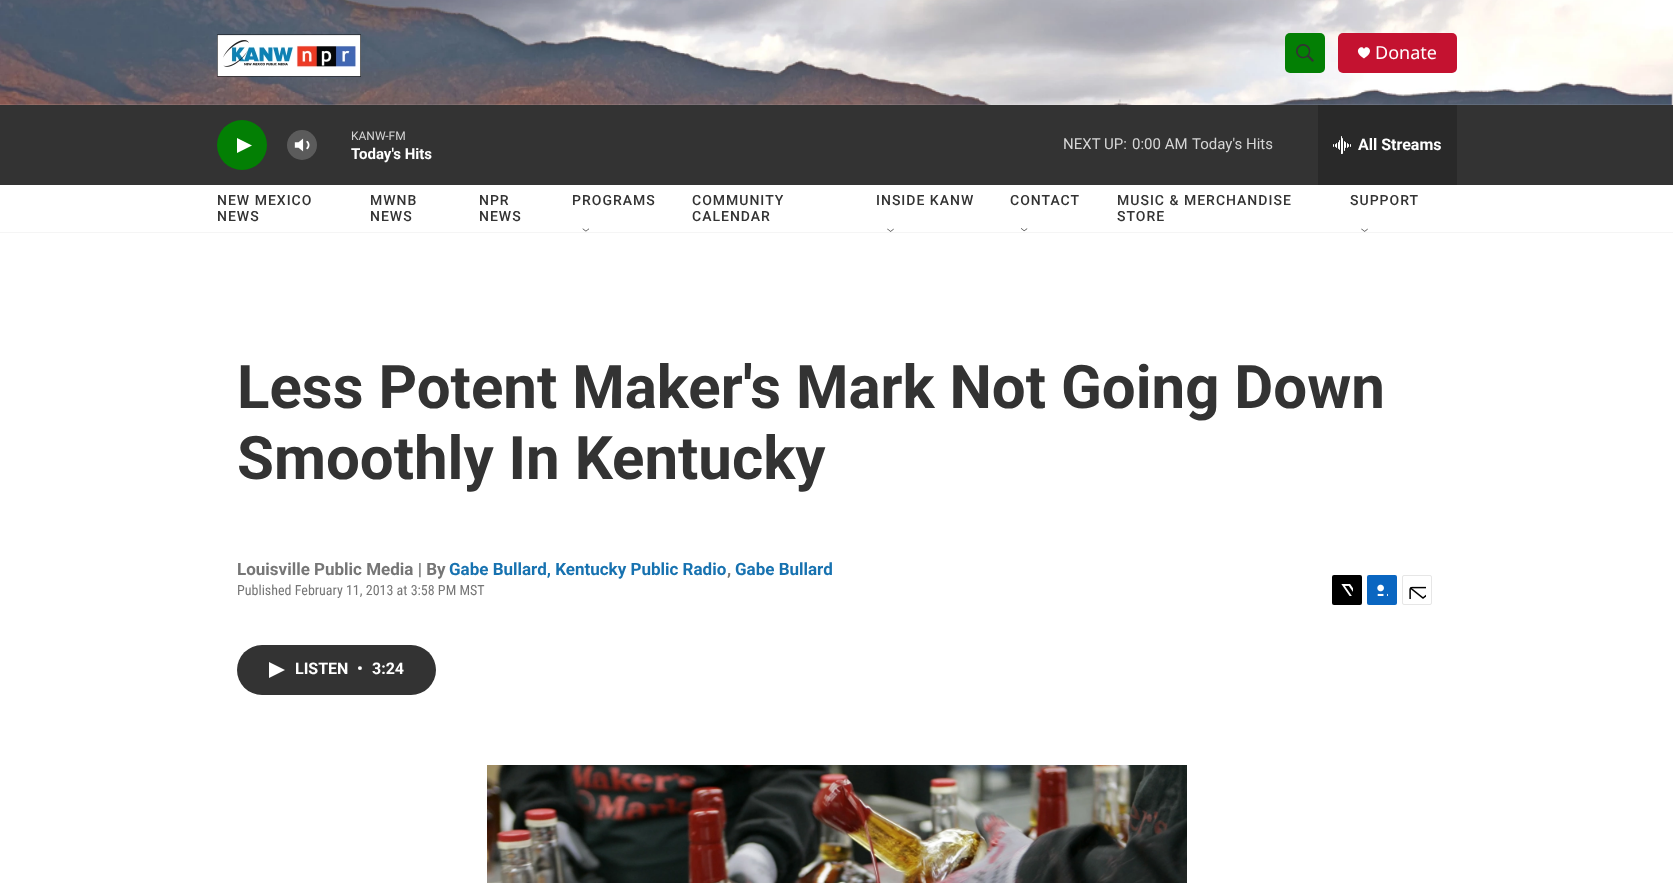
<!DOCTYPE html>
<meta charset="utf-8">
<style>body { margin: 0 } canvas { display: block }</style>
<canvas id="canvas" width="1673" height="883"></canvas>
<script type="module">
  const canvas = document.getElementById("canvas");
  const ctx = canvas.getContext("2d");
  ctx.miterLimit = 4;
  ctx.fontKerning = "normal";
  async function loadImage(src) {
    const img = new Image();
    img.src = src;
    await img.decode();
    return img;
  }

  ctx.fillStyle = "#ffffff";
  ctx.fillRect(0, 0, 1673, 883);
  ctx.fillStyle = "#f5f5f5";
  ctx.fillRect(0, 232, 1673, 1);
  ctx.drawImage(await loadImage("img1.png"), 0, 0, 1673, 105);
  ctx.drawImage(await loadImage("img2.png"), 217, 34, 144, 43);
  ctx.fillStyle = "#037f04";
  ctx.beginPath();
  ctx.roundRect(1285, 33, 40, 40, 5);
  ctx.fill();
  ctx.drawImage(await loadImage("img3.png"), 1296, 44, 18, 18);
  ctx.fillStyle = "#c41230";
  ctx.beginPath();
  ctx.roundRect(1338, 33, 119, 40, 5);
  ctx.fill();
  ctx.fillStyle = "#ffffff";
  ctx.beginPath();
  ctx.moveTo(1364, 49);
  ctx.bezierCurveTo(1362, 44, 1351.5, 51, 1364, 58.5);
  ctx.bezierCurveTo(1376.5, 51, 1366, 44, 1364, 49);
  ctx.closePath();
  ctx.fill();
  ctx.font = "18px Noto Sans";
  ctx.fillText("Donate", 1375, 59);
  ctx.fillStyle = "#333333";
  ctx.fillRect(0, 105, 1673, 80);
  ctx.fillStyle = "#037f04";
  ctx.beginPath();
  ctx.arc(242, 145, 25, 0, Math.PI * 2);
  ctx.fill();
  ctx.fillStyle = "#ffffff";
  ctx.beginPath();
  ctx.moveTo(237, 138);
  ctx.lineTo(252, 145.5);
  ctx.lineTo(237, 153);
  ctx.closePath();
  ctx.fill();
  ctx.drawImage(await loadImage("img4.png"), 294, 138, 16, 14);
  ctx.fillStyle = "rgba(255, 255, 255, 0.2)";
  ctx.beginPath();
  ctx.arc(302, 145, 15, 0, Math.PI * 2);
  ctx.fill();
  ctx.font = "12px Roboto";
  ctx.fillStyle = "#d6d6d6";
  ctx.fillText("KANW-FM", 351, 140);
  ctx.font = "bold 15px 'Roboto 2'";
  ctx.fillStyle = "#ffffff";
  ctx.fillText("Today's Hits", 351, 159);
  ctx.font = "15px Roboto";
  ctx.fillStyle = "#d6d6d6";
  ctx.fillText("NEXT UP:", 1063, 149);
  ctx.fillText("0:00 AM", 1132, 149);
  ctx.fillText("Today's Hits", 1192, 149);
  ctx.fillStyle = "#292929";
  ctx.fillRect(1318, 105, 139, 80);
  ctx.drawImage(await loadImage("img5.png"), 1333, 136, 18, 18);
  ctx.font = "bold 16px 'Roboto 2'";
  ctx.fillStyle = "#ffffff";
  ctx.fillText("All Streams", 1358, 150);
  ctx.letterSpacing = "1px";
  ctx.font = "500 14px Roboto";
  ctx.fillStyle = "#333333";
  ctx.fillText("NEW MEXICO", 217, 205);
  ctx.fillText("NEWS", 217, 221);
  ctx.fillText("MWNB", 370, 205);
  ctx.fillText("NEWS", 370, 221);
  ctx.fillText("NPR", 479, 205);
  ctx.fillText("NEWS", 479, 221);
  ctx.fillText("PROGRAMS", 572, 205);
  ctx.drawImage(await loadImage("img6.png"), 582, 228, 7, 4);
  ctx.fillText("COMMUNITY", 692, 205);
  ctx.fillText("CALENDAR", 692, 221);
  ctx.fillText("INSIDE KANW", 876, 205);
  ctx.drawImage(await loadImage("img7.png"), 887, 228, 7, 4);
  ctx.fillText("CONTACT", 1010, 205);
  ctx.drawImage(await loadImage("img8.png"), 1021, 228, 7, 4);
  ctx.fillText("MUSIC & MERCHANDISE", 1117, 205);
  ctx.fillText("STORE", 1117, 221);
  ctx.fillText("SUPPORT", 1350, 205);
  ctx.drawImage(await loadImage("img9.png"), 1361, 228, 7, 4);
  ctx.letterSpacing = "0px";
  ctx.font = "bold 60px Roboto";
  ctx.fillText("Less Potent Maker's Mark Not Going Down", 237, 408);
  ctx.fillText("Smoothly In Kentucky", 237, 479);
  ctx.font = "bold 17px Roboto";
  ctx.fillStyle = "#767676";
  ctx.fillText("Louisville Public Media | By", 237, 575);
  ctx.fillStyle = "#1772b0";
  ctx.fillText("Gabe Bullard, Kentucky Public Radio", 449, 575);
  ctx.fillStyle = "#767676";
  ctx.fillText(",", 727, 575);
  ctx.fillStyle = "#1772b0";
  ctx.fillText("Gabe Bullard", 735, 575);
  ctx.font = "14px Roboto Condensed";
  ctx.fillStyle = "#767676";
  ctx.fillText("Published February 11, 2013 at 3:58 PM MST", 237, 595);
  ctx.fillStyle = "#000000";
  ctx.beginPath();
  ctx.roundRect(1332, 575, 30, 30, 2);
  ctx.fill();
  ctx.drawImage(await loadImage("img10.png"), 1341, 584, 12, 12);
  ctx.fillStyle = "#0a66c1";
  ctx.beginPath();
  ctx.roundRect(1367, 575, 30, 30, 2);
  ctx.fill();
  ctx.drawImage(await loadImage("img11.png"), 1377, 584, 11, 12);
  ctx.beginPath();
  ctx.roundRect(1402.5, 575.5, 29, 29, 1.5);
  ctx.strokeStyle = "#e6e6e6";
  ctx.stroke();
  ctx.drawImage(await loadImage("img12.png"), 1409, 586, 17, 13);
  ctx.fillStyle = "#333333";
  ctx.beginPath();
  ctx.roundRect(237, 645, 199, 50, 25);
  ctx.fill();
  ctx.fillStyle = "#ffffff";
  ctx.beginPath();
  ctx.moveTo(269, 662);
  ctx.lineTo(285, 670);
  ctx.lineTo(269, 678);
  ctx.closePath();
  ctx.fill();
  ctx.font = "bold 16px 'Roboto 2'";
  ctx.fillText("LISTEN", 295, 674);
  ctx.fillText("•", 357, 674);
  ctx.fillText("3:24", 372, 674);
  ctx.drawImage(await loadImage("img13.png"), 487, 765, 700, 118);
</script>
